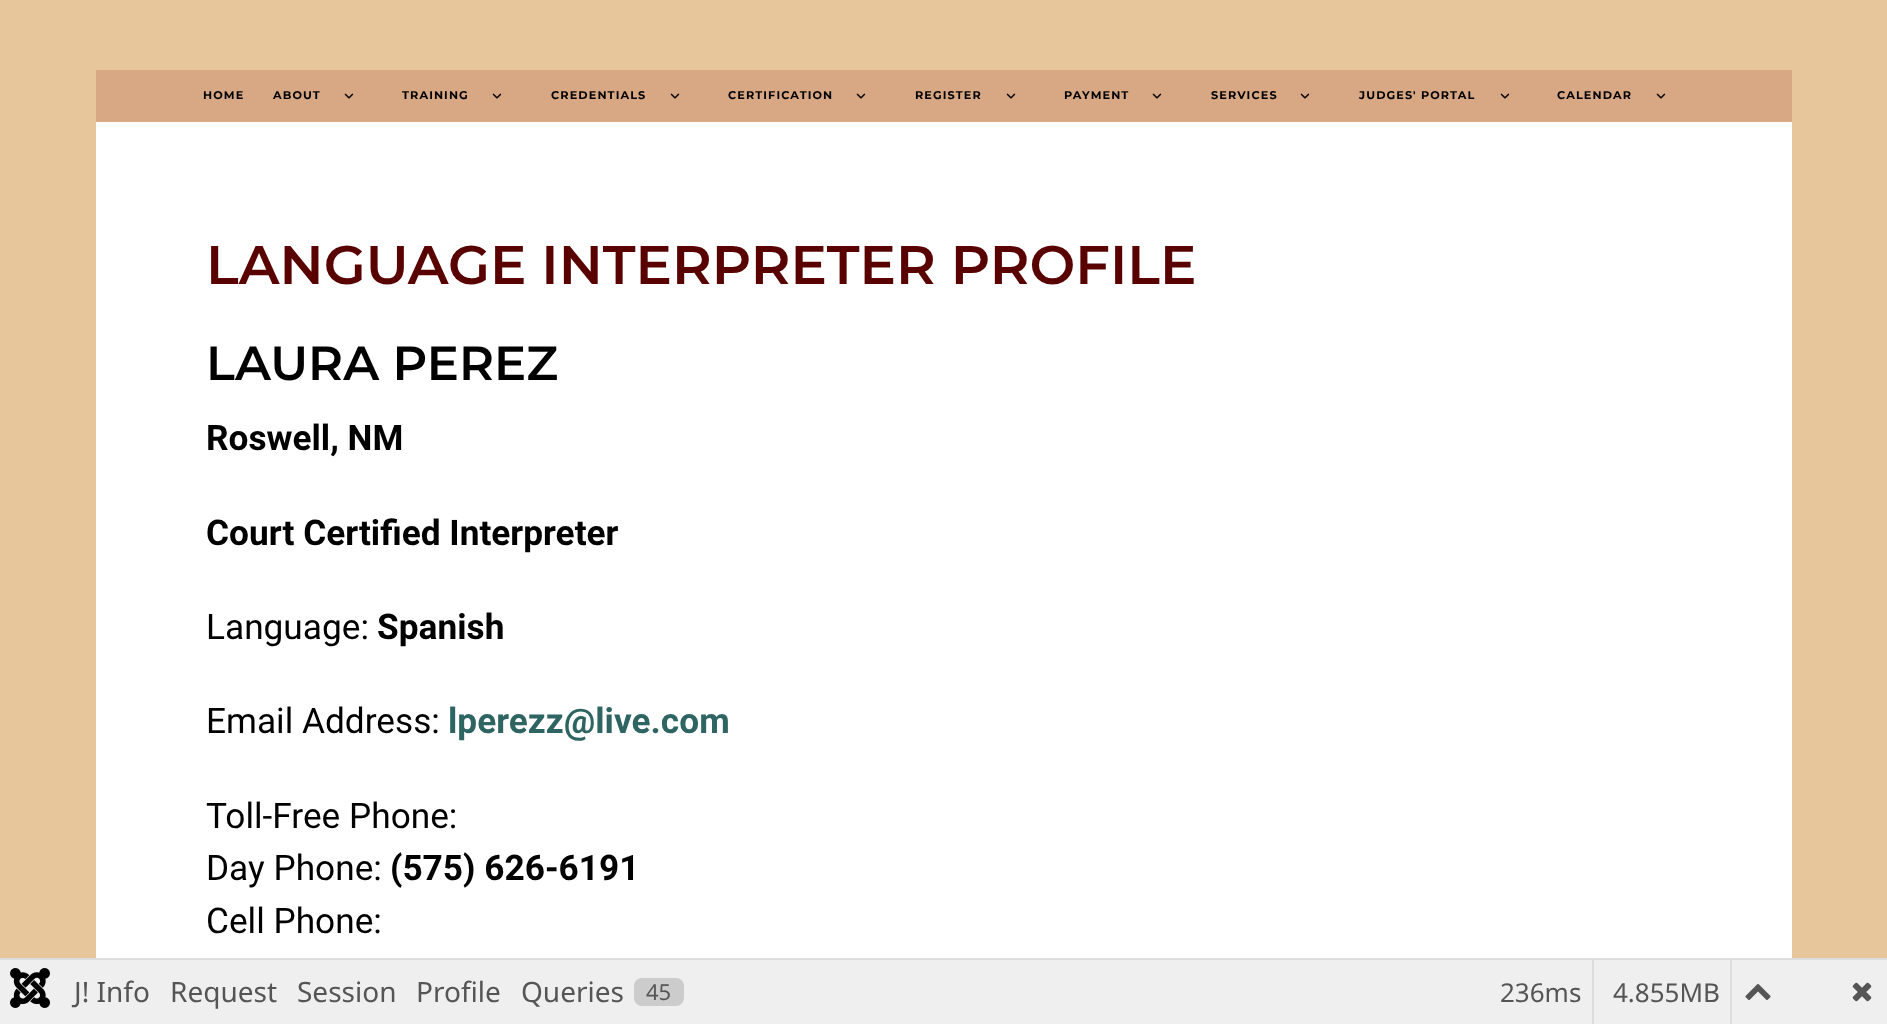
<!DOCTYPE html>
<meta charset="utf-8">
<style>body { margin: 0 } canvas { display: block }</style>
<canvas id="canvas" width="1887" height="1024"></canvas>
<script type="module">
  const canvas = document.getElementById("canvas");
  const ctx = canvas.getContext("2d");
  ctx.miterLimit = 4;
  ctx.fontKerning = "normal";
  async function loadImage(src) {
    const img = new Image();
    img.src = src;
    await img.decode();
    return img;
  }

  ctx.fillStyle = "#e6c69a";
  ctx.fillRect(0, 0, 1887, 1024);
  ctx.fillStyle = "#d8a783";
  ctx.fillRect(96, 70, 1696, 52);
  ctx.letterSpacing = "1.1px";
  ctx.font = "bold 11.25px Montserrat";
  ctx.fillStyle = "#000000";
  ctx.fillText("HOME", 203, 99);
  ctx.fillText("ABOUT", 273, 99);
  ctx.drawImage(await loadImage("img1.png"), 344, 93, 10, 6);
  ctx.fillText("TRAINING", 402, 99);
  ctx.drawImage(await loadImage("img1.png"), 492, 93, 10, 6);
  ctx.fillText("CREDENTIALS", 551, 99);
  ctx.drawImage(await loadImage("img1.png"), 670, 93, 10, 6);
  ctx.fillText("CERTIFICATION", 728, 99);
  ctx.drawImage(await loadImage("img1.png"), 856, 93, 10, 6);
  ctx.fillText("REGISTER", 915, 99);
  ctx.drawImage(await loadImage("img1.png"), 1006, 93, 10, 6);
  ctx.fillText("PAYMENT", 1064, 99);
  ctx.drawImage(await loadImage("img1.png"), 1152, 93, 10, 6);
  ctx.fillText("SERVICES", 1211, 99);
  ctx.drawImage(await loadImage("img1.png"), 1300, 93, 10, 6);
  ctx.fillText("JUDGES' PORTAL", 1359, 99);
  ctx.drawImage(await loadImage("img1.png"), 1500, 93, 10, 6);
  ctx.fillText("CALENDAR", 1557, 99);
  ctx.drawImage(await loadImage("img1.png"), 1656, 93, 10, 6);
  ctx.fillStyle = "#ffffff";
  ctx.fillRect(96, 122, 1696, 836);
  ctx.letterSpacing = "0px";
  ctx.font = "600 54.4px Montserrat";
  ctx.fillStyle = "#590000";
  ctx.fillText("LANGUAGE INTERPRETER PROFILE", 206, 284);
  ctx.font = "600 48px Montserrat";
  ctx.fillStyle = "#000000";
  ctx.fillText("LAURA PEREZ", 206, 380);
  ctx.font = "bold 35.25px Roboto";
  ctx.fillText("Roswell, NM", 206, 450);
  ctx.fillText("Court Certified Interpreter", 206, 545);
  ctx.font = "35.25px Roboto";
  ctx.fillText("Language:", 206, 639);
  ctx.font = "bold 35.25px Roboto";
  ctx.fillText("Spanish", 377, 639);
  ctx.font = "35.25px Roboto";
  ctx.fillText("Email Address:", 206, 733);
  ctx.font = "bold 35.25px Roboto";
  ctx.fillStyle = "#2e6562";
  ctx.fillText("lperezz@live.com", 448, 733);
  ctx.font = "35.25px Roboto";
  ctx.fillStyle = "#000000";
  ctx.fillText("Toll-Free Phone:", 206, 828);
  ctx.fillText("Day Phone:", 206, 880);
  ctx.font = "bold 35.25px Roboto";
  ctx.fillText("(575) 626-6191", 390, 880);
  ctx.font = "35.25px Roboto";
  ctx.fillText("Cell Phone:", 206, 933);
  ctx.fillStyle = "#dddddd";
  ctx.fillRect(0, 958, 1887, 2);
  ctx.fillStyle = "#efefef";
  ctx.fillRect(0, 960, 1887, 64);
  ctx.drawImage(await loadImage("img2.png"), 10, 968, 40, 40);
  ctx.font = "28px Noto Sans";
  ctx.fillStyle = "#555555";
  ctx.fillText("J! Info", 74, 1002);
  ctx.fillText("Request", 170, 1002);
  ctx.fillText("Session", 297, 1002);
  ctx.fillText("Profile", 416, 1002);
  ctx.fillText("Queries", 521, 1002);
  ctx.fillStyle = "#cccccc";
  ctx.beginPath();
  ctx.roundRect(634, 978, 50, 28, 8);
  ctx.fill();
  ctx.font = "22px Noto Sans";
  ctx.fillStyle = "#555555";
  ctx.fillText("45", 646, 1000);
  ctx.fillStyle = "#dddddd";
  ctx.fillRect(1592, 960, 2, 64);
  ctx.font = "26px Noto Sans";
  ctx.fillStyle = "#555555";
  ctx.fillText("236ms", 1500, 1002);
  ctx.fillStyle = "#dddddd";
  ctx.fillRect(1730, 960, 2, 64);
  ctx.fillStyle = "#555555";
  ctx.fillText("4.855MB", 1613, 1002);
  ctx.drawImage(await loadImage("img3.png"), 1745, 984, 26, 16);
  ctx.drawImage(await loadImage("img4.png"), 1852, 982, 20, 20);
</script>
